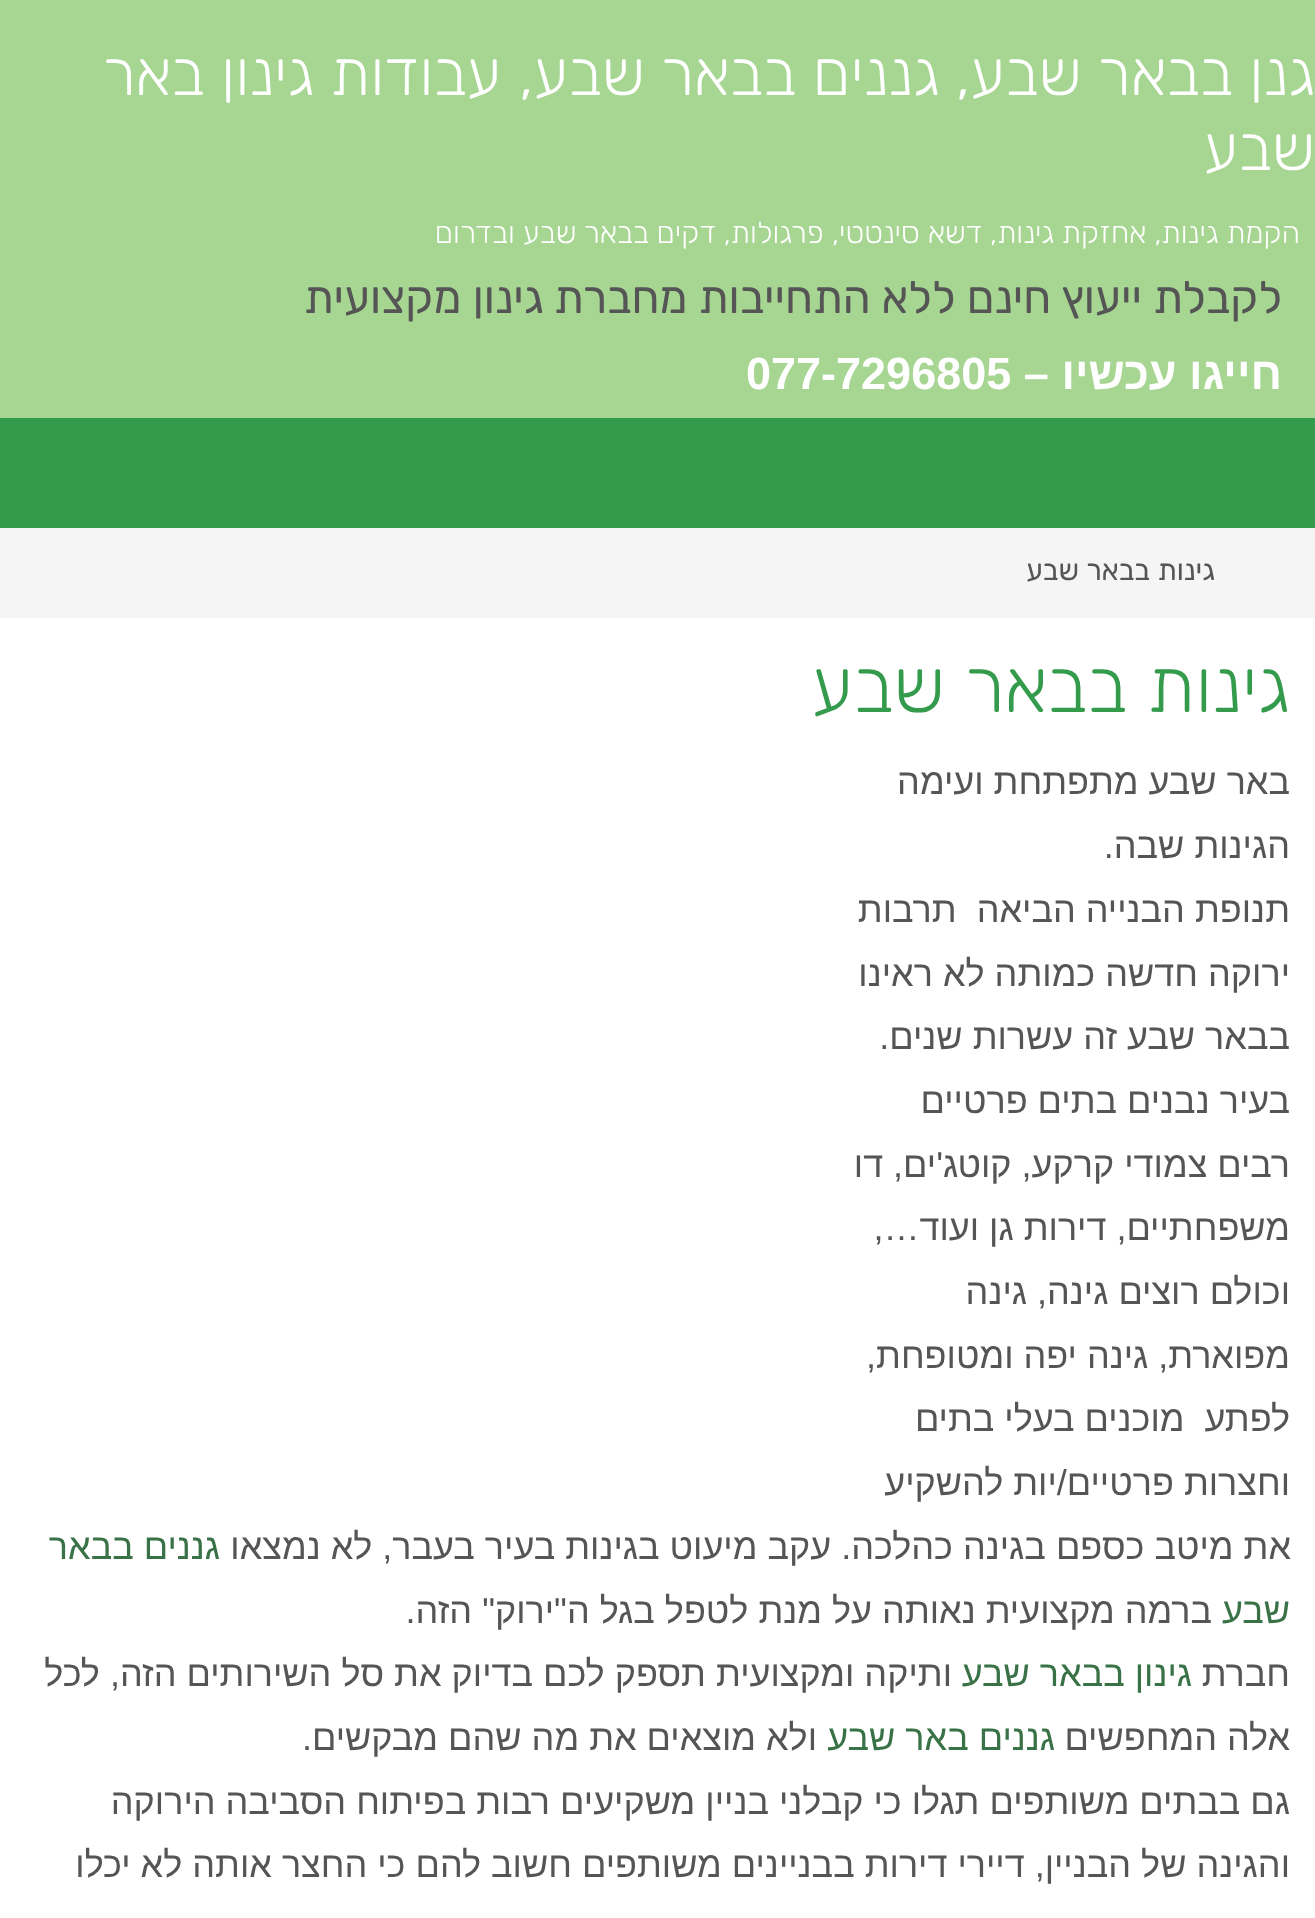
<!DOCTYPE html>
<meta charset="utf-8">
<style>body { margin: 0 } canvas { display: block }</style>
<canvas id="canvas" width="1315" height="1918"></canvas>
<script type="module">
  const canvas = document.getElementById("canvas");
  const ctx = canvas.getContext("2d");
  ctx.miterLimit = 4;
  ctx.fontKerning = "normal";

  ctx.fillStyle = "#ffffff";
  ctx.fillRect(0, 0, 1315, 1918);
  ctx.fillStyle = "#a7d693";
  ctx.fillRect(0, 0, 1315, 418);
  ctx.wordSpacing = "1.25px";
  ctx.direction = "rtl";
  ctx.font = "300 62.5px Rubik";
  ctx.fillStyle = "#ffffff";
  ctx.fillText("גנן בבאר שבע, גננים בבאר שבע, עבודות גינון באר", 1315, 95);
  ctx.wordSpacing = "0px";
  ctx.fillText("שבע", 1315, 170);
  ctx.wordSpacing = "0.5px";
  ctx.font = "300 30px Rubik";
  ctx.fillText("הקמת גינות, אחזקת גינות, דשא סינטטי, פרגולות, דקים בבאר שבע ובדרום", 1300, 243);
  ctx.wordSpacing = "0.25px";
  ctx.font = "45px Rubik";
  ctx.fillStyle = "#555555";
  ctx.fillText("לקבלת ייעוץ חינם ללא התחייבות מחברת גינון מקצועית", 1282, 313);
  ctx.wordSpacing = "0px";
  ctx.font = "bold 45px Liberation Sans";
  ctx.fillStyle = "#ffffff";
  ctx.fillText("חייגו עכשיו –", 1282, 389);
  ctx.direction = "ltr";
  ctx.fillText("077-7296805", 746, 389);
  ctx.fillStyle = "#359b4c";
  ctx.fillRect(0, 418, 1315, 110);
  ctx.fillStyle = "#f5f5f5";
  ctx.fillRect(0, 528, 1315, 90);
  ctx.wordSpacing = "1px";
  ctx.direction = "rtl";
  ctx.font = "28.75px Rubik";
  ctx.fillStyle = "#555555";
  ctx.fillText("גינות בבאר שבע", 1215, 580);
  ctx.wordSpacing = "2px";
  ctx.font = "300 75px Rubik";
  ctx.fillStyle = "#359b4c";
  ctx.fillText("גינות בבאר שבע", 1290, 712);
  ctx.wordSpacing = "0px";
  ctx.font = "36px Liberation Sans";
  ctx.fillStyle = "#555555";
  ctx.fillText("באר שבע מתפתחת ועימה", 1290, 794);
  ctx.fillText("הגינות שבה.", 1290, 858);
  ctx.fillText("תנופת הבנייה הביאה  תרבות", 1290, 922);
  ctx.fillText("ירוקה חדשה כמותה לא ראינו", 1290, 986);
  ctx.fillText("בבאר שבע זה עשרות שנים.", 1290, 1049);
  ctx.fillText("בעיר נבנים בתים פרטיים", 1290, 1113);
  ctx.fillText("רבים צמודי קרקע, קוטג'ים, דו", 1290, 1177);
  ctx.fillText("משפחתיים, דירות גן ועוד…,", 1290, 1240);
  ctx.fillText("וכולם רוצים גינה, גינה", 1290, 1304);
  ctx.fillText("מפוארת, גינה יפה ומטופחת,", 1290, 1368);
  ctx.fillText("לפתע  מוכנים בעלי בתים", 1290, 1431);
  ctx.fillText("וחצרות פרטיים/יות להשקיע", 1290, 1495);
  ctx.fillText("את מיטב כספם בגינה כהלכה. עקב מיעוט בגינות בעיר בעבר, לא נמצאו", 1291, 1559);
  ctx.fillStyle = "#3a7247";
  ctx.fillText("גננים בבאר", 220, 1559);
  ctx.fillText("שבע", 1290, 1623);
  ctx.fillStyle = "#555555";
  ctx.fillText("ברמה מקצועית נאותה על מנת לטפל בגל ה\"ירוק\" הזה.", 1212, 1623);
  ctx.fillText("חברת", 1290, 1686);
  ctx.fillStyle = "#3a7247";
  ctx.fillText("גינון בבאר שבע", 1192, 1686);
  ctx.fillStyle = "#555555";
  ctx.fillText("ותיקה ומקצועית תספק לכם בדיוק את סל השירותים הזה, לכל", 952, 1686);
  ctx.fillText("אלה המחפשים", 1290, 1750);
  ctx.fillStyle = "#3a7247";
  ctx.fillText("גננים באר שבע", 1055, 1750);
  ctx.fillStyle = "#555555";
  ctx.fillText("ולא מוצאים את מה שהם מבקשים.", 817, 1750);
  ctx.fillText("גם בבתים משותפים תגלו כי קבלני בניין משקיעים רבות בפיתוח הסביבה הירוקה", 1290, 1814);
  ctx.fillText("והגינה של הבניין, דיירי דירות בבניינים משותפים חשוב להם כי החצר אותה לא יכלו", 1290, 1877);
</script>
